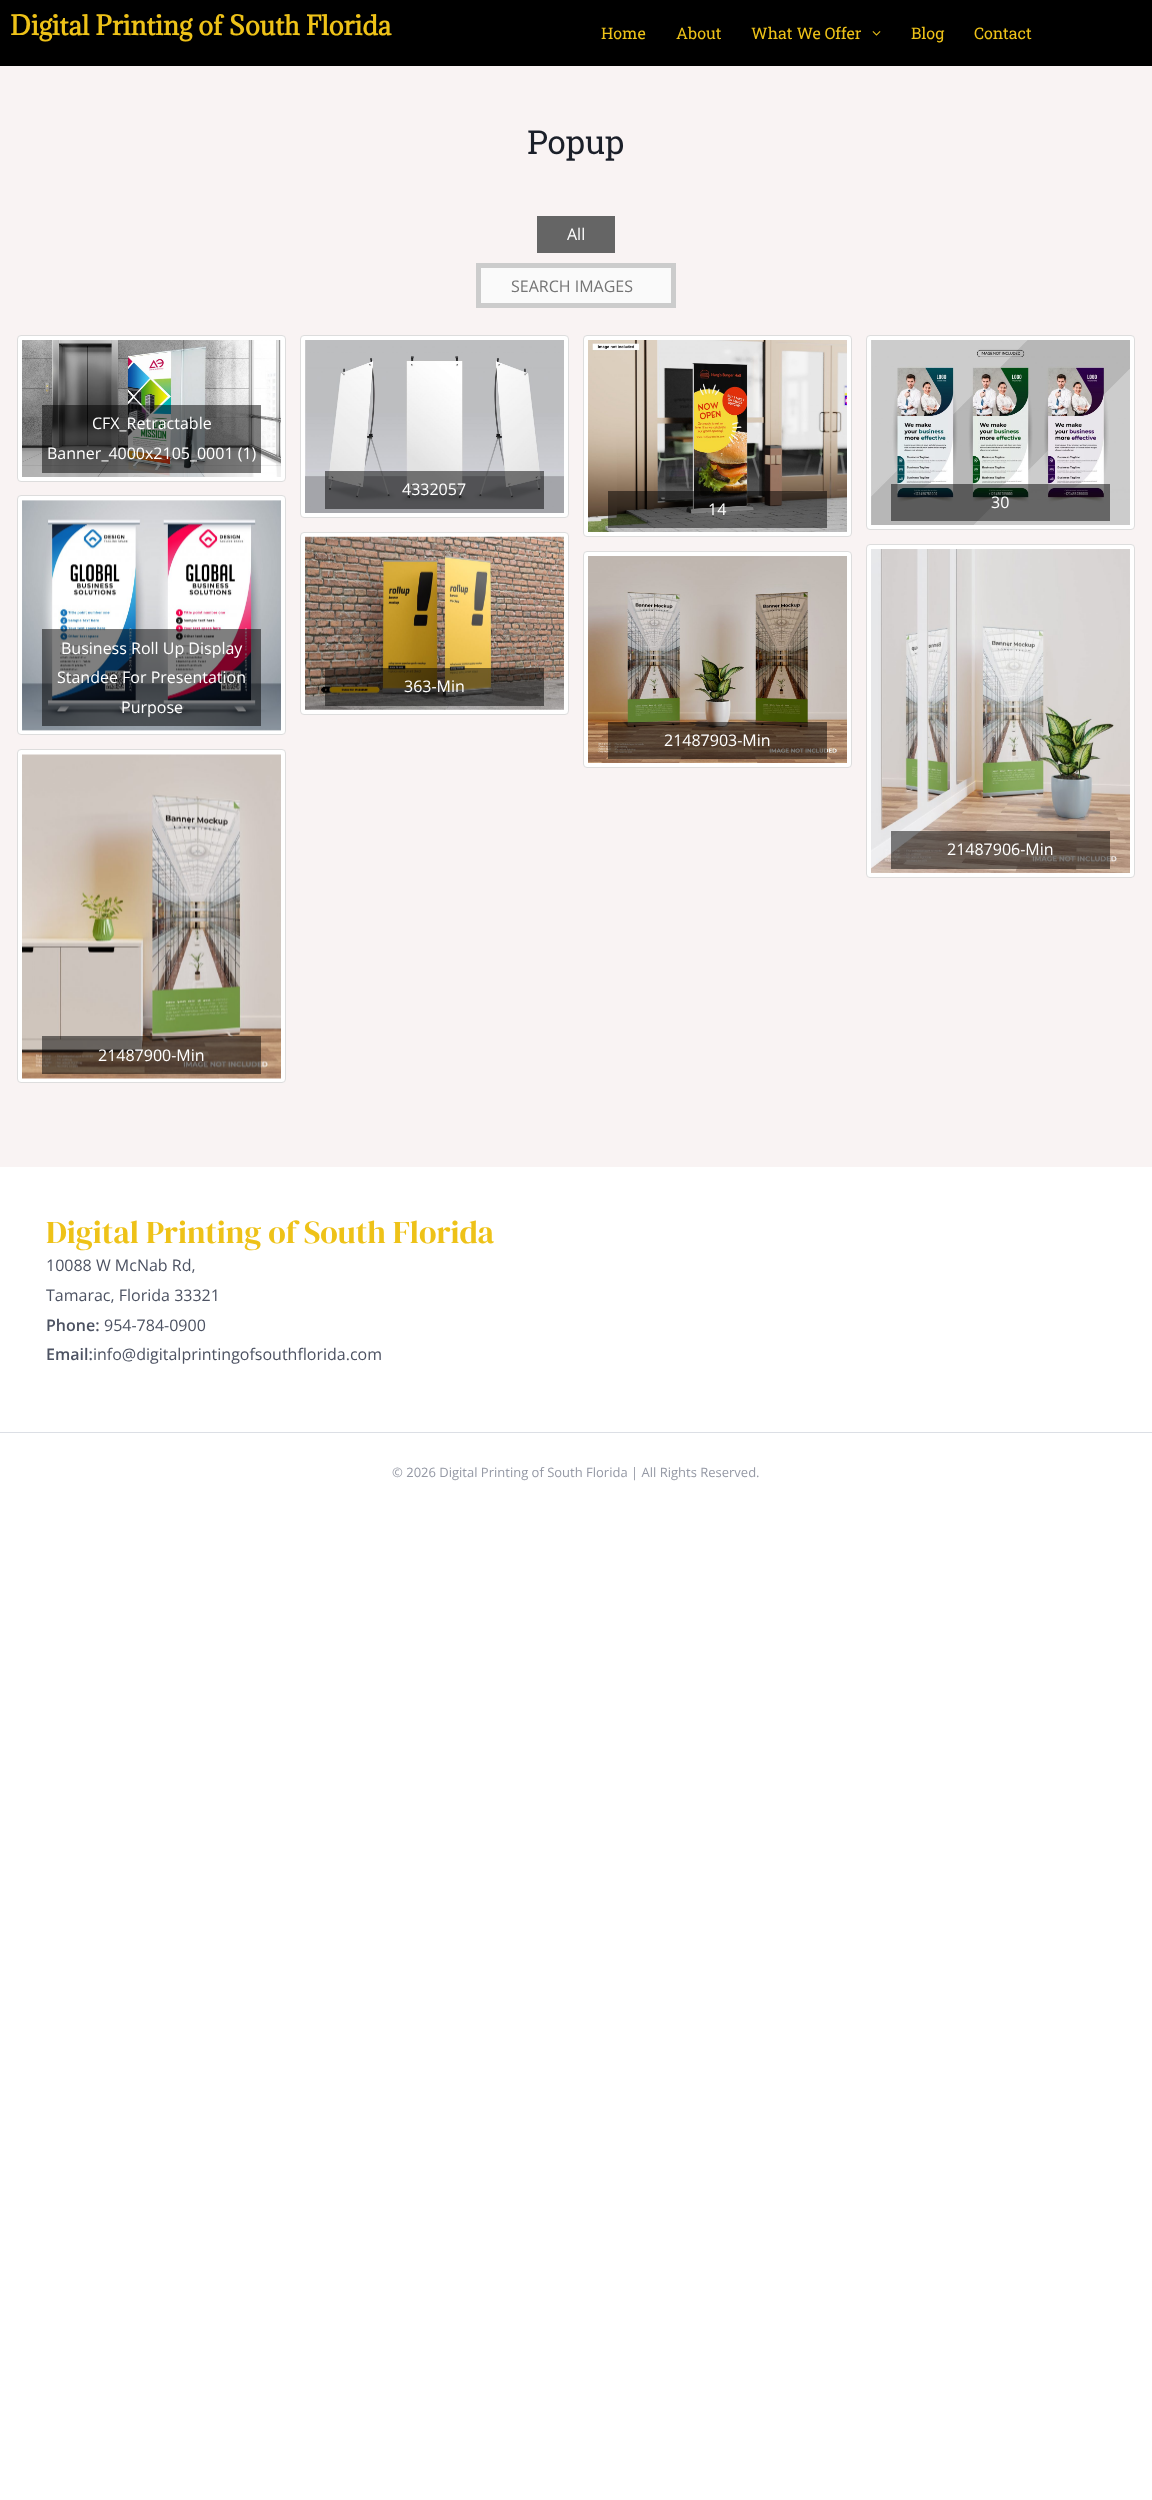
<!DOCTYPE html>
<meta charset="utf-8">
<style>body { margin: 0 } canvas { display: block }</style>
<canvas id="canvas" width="1152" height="2500"></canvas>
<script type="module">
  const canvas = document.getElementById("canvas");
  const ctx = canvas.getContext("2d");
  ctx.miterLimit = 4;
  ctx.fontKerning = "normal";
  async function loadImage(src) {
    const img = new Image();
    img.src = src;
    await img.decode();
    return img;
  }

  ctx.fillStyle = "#ffffff";
  ctx.fillRect(0, 0, 1152, 2500);
  ctx.fillStyle = "#000000";
  ctx.fillRect(0, 0, 1152, 66);
  ctx.font = "bold 25px Adamina";
  ctx.fillStyle = "#eec218";
  ctx.fillText("Digital Printing of South Florida", 10, 35);
  ctx.font = "16px Roboto Slab";
  ctx.fillText("Home", 601, 39);
  ctx.fillText("About", 676, 39);
  ctx.fillText("What We Offer", 751, 39);
  ctx.drawImage(await loadImage("img1.png"), 872, 31, 9, 5);
  ctx.fillText("Blog", 911, 39);
  ctx.fillText("Contact", 974, 39);
  ctx.fillStyle = "#f9f3f3";
  ctx.fillRect(0, 66, 1152, 1101);
  ctx.font = "33px Roboto Slab";
  ctx.fillStyle = "#1b1f29";
  ctx.fillText("Popup", 527, 154);
  ctx.fillStyle = "#656565";
  ctx.fillRect(537, 216, 78, 37);
  ctx.font = "16px Open Sans";
  ctx.fillStyle = "#ffffff";
  ctx.fillText("All", 567, 240);
  ctx.fillStyle = "#fafafa";
  ctx.fillRect(481, 268, 190, 35);
  ctx.beginPath();
  ctx.moveTo(478.5, 265.5);
  ctx.lineTo(673.5, 265.5);
  ctx.lineTo(673.5, 305.5);
  ctx.lineTo(478.5, 305.5);
  ctx.closePath();
  ctx.strokeStyle = "#cccccc";
  ctx.lineWidth = 5;
  ctx.stroke();
  ctx.fillStyle = "#757575";
  ctx.fillText("SEARCH IMAGES", 511, 292);
  ctx.fillStyle = "#ffffff";
  ctx.beginPath();
  ctx.roundRect(17.5, 335.5, 268, 146, 3.5);
  ctx.fill();
  ctx.strokeStyle = "#dddddd";
  ctx.lineWidth = 1;
  ctx.stroke();
  ctx.drawImage(await loadImage("img2.png"), 22, 340, 259, 137);
  ctx.fillStyle = "rgba(0, 0, 0, 0.5)";
  ctx.fillRect(42, 405, 219, 68);
  ctx.fillStyle = "#ffffff";
  ctx.fillText("CFX_Retractable", 92, 429);
  ctx.fillText("Banner_4000x2105_0001 (1)", 47, 459);
  ctx.beginPath();
  ctx.roundRect(300.5, 335.5, 268, 182, 3.5);
  ctx.fill();
  ctx.stroke();
  ctx.drawImage(await loadImage("img3.png"), 305, 340, 259, 173);
  ctx.fillStyle = "rgba(0, 0, 0, 0.5)";
  ctx.fillRect(325, 471, 219, 38);
  ctx.fillStyle = "#ffffff";
  ctx.fillText("4332057", 402, 495);
  ctx.beginPath();
  ctx.roundRect(583.5, 335.5, 268, 201, 3.5);
  ctx.fill();
  ctx.stroke();
  ctx.drawImage(await loadImage("img4.png"), 588, 340, 259, 192);
  ctx.fillStyle = "rgba(0, 0, 0, 0.5)";
  ctx.fillRect(608, 491, 219, 37);
  ctx.fillStyle = "#ffffff";
  ctx.fillText("14", 708, 515);
  ctx.beginPath();
  ctx.roundRect(866.5, 335.5, 268, 194, 3.5);
  ctx.fill();
  ctx.stroke();
  ctx.drawImage(await loadImage("img5.png"), 871, 340, 259, 185);
  ctx.fillStyle = "rgba(0, 0, 0, 0.5)";
  ctx.fillRect(891, 484, 219, 37);
  ctx.fillStyle = "#ffffff";
  ctx.fillText("30", 991, 508);
  ctx.beginPath();
  ctx.roundRect(17.5, 495.5, 268, 239, 3.5);
  ctx.fill();
  ctx.stroke();
  ctx.drawImage(await loadImage("img6.png"), 22, 500, 259, 231);
  ctx.fillStyle = "rgba(0, 0, 0, 0.5)";
  ctx.fillRect(42, 629, 219, 97);
  ctx.fillStyle = "#ffffff";
  ctx.fillText("Business Roll Up Display", 61, 654);
  ctx.fillText("Standee For Presentation", 57, 683);
  ctx.fillText("Purpose", 121, 713);
  ctx.beginPath();
  ctx.roundRect(300.5, 532.5, 268, 182, 3.5);
  ctx.fill();
  ctx.stroke();
  ctx.drawImage(await loadImage("img7.png"), 305, 536, 259, 174);
  ctx.fillStyle = "rgba(0, 0, 0, 0.5)";
  ctx.fillRect(325, 668, 219, 38);
  ctx.fillStyle = "#ffffff";
  ctx.fillText("363-Min", 404, 692);
  ctx.beginPath();
  ctx.roundRect(583.5, 551.5, 268, 216, 3.5);
  ctx.fill();
  ctx.stroke();
  ctx.drawImage(await loadImage("img8.png"), 588, 556, 259, 207);
  ctx.fillStyle = "rgba(0, 0, 0, 0.5)";
  ctx.fillRect(608, 722, 219, 37);
  ctx.fillStyle = "#ffffff";
  ctx.fillText("21487903-Min", 664, 746);
  ctx.beginPath();
  ctx.roundRect(866.5, 544.5, 268, 333, 3.5);
  ctx.fill();
  ctx.stroke();
  ctx.drawImage(await loadImage("img9.png"), 871, 549, 259, 324);
  ctx.fillStyle = "rgba(0, 0, 0, 0.5)";
  ctx.fillRect(891, 831, 219, 38);
  ctx.fillStyle = "#ffffff";
  ctx.fillText("21487906-Min", 947, 855);
  ctx.beginPath();
  ctx.roundRect(17.5, 749.5, 268, 333, 3.5);
  ctx.fill();
  ctx.stroke();
  ctx.drawImage(await loadImage("img10.png"), 22, 754, 259, 325);
  ctx.fillStyle = "rgba(0, 0, 0, 0.5)";
  ctx.fillRect(42, 1036, 219, 38);
  ctx.fillStyle = "#ffffff";
  ctx.fillText("21487900-Min", 98, 1061);
  ctx.font = "32px DM Serif Display";
  ctx.fillStyle = "#eec218";
  ctx.fillText("Digital Printing of South Florida", 46, 1243);
  ctx.font = "16px Open Sans";
  ctx.fillStyle = "#4c5262";
  ctx.fillText("10088 W McNab Rd,", 46, 1271);
  ctx.fillText("Tamarac, Florida 33321", 46, 1301);
  ctx.font = "600 16px Open Sans";
  ctx.fillText("Phone:", 46, 1331);
  ctx.font = "16px Open Sans";
  ctx.fillText("954-784-0900", 104, 1331);
  ctx.font = "600 16px Open Sans";
  ctx.fillText("Email:", 46, 1360);
  ctx.font = "16px Open Sans";
  ctx.fillText("info@digitalprintingofsouthflorida.com", 93, 1360);
  ctx.fillStyle = "#dcdfe5";
  ctx.fillRect(0, 1432, 1152, 1);
  ctx.font = "13px Open Sans";
  ctx.fillStyle = "#9599a5";
  ctx.fillText("© 2026 Digital Printing of South Florida | All Rights Reserved.", 392, 1477);
</script>
